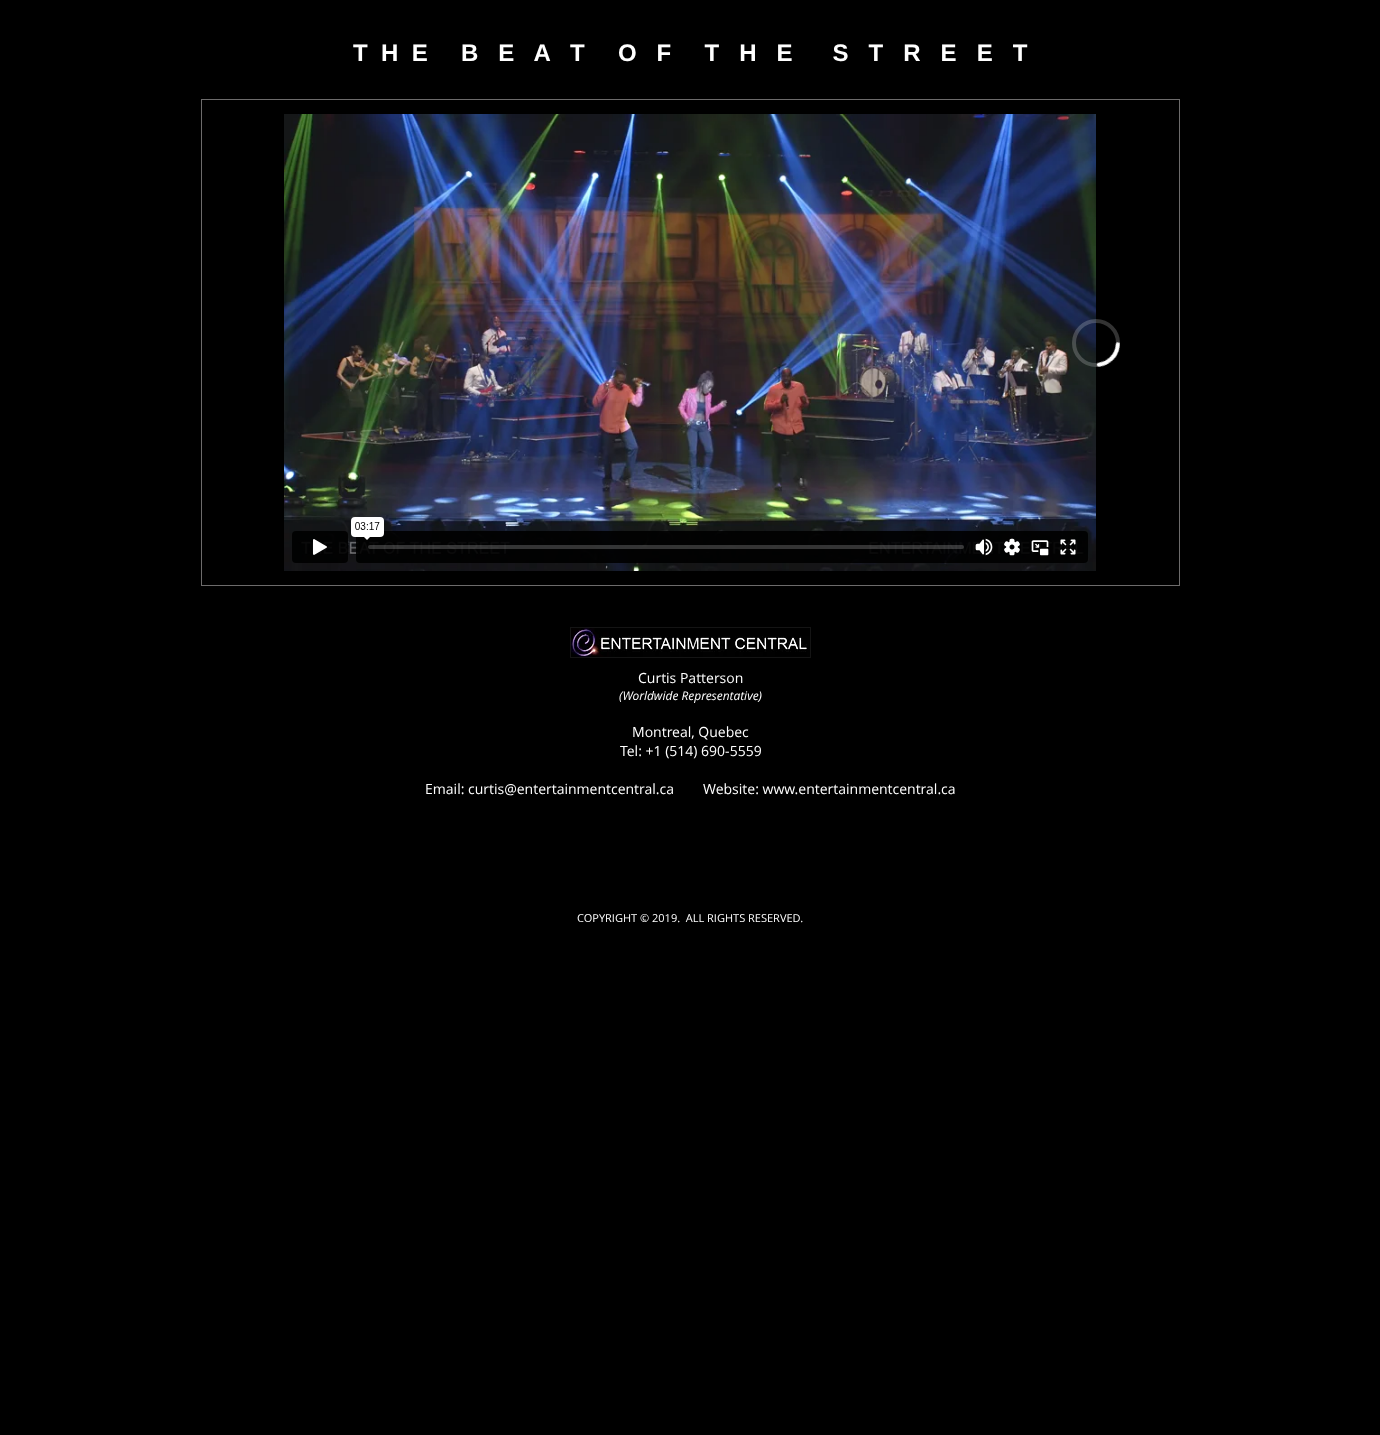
<!DOCTYPE html>
<meta charset="utf-8">
<style>body { margin: 0 } canvas { display: block }</style>
<canvas id="canvas" width="1380" height="1435"></canvas>
<script type="module">
  const canvas = document.getElementById("canvas");
  const ctx = canvas.getContext("2d");
  ctx.miterLimit = 4;
  ctx.fontKerning = "normal";
  async function loadImage(src) {
    const img = new Image();
    img.src = src;
    await img.decode();
    return img;
  }

  ctx.fillStyle = "#000000";
  ctx.fillRect(0, 0, 1380, 1435);
  ctx.font = "bold 24px Liberation Sans";
  ctx.fillStyle = "#ffffff";
  ctx.fillText("T  H  E     B   E   A   T     O   F     T   H   E      S   T   R   E   E   T", 353, 61);
  ctx.fillStyle = "#6d6b6b";
  ctx.fillRect(201, 99, 979, 487);
  ctx.fillStyle = "#000000";
  ctx.fillRect(202, 100, 977, 485);
  ctx.drawImage(await loadImage("img1.png"), 284, 114, 836, 457);
  ctx.strokeStyle = "#141414";
  ctx.strokeRect(570.5, 627.5, 240, 30);
  ctx.drawImage(await loadImage("img2.png"), 571, 628, 239, 29);
  ctx.font = "14px Open Sans";
  ctx.fillStyle = "#ffffff";
  ctx.fillText("Curtis Patterson", 638, 683);
  ctx.font = "italic 12px Open Sans";
  ctx.fillText("(Worldwide Representative)", 619, 700);
  ctx.font = "14px Open Sans";
  ctx.fillText("Montreal, Quebec", 632, 737);
  ctx.fillText("Tel: +1 (514) 690-5559", 620, 756);
  ctx.fillText("Email: curtis@entertainmentcentral.ca", 425, 794);
  ctx.fillText("Website: www.entertainmentcentral.ca", 703, 794);
  ctx.font = "11px Open Sans";
  ctx.fillText("COPYRIGHT © 2019.  ALL RIGHTS RESERVED.", 577, 922);
</script>
